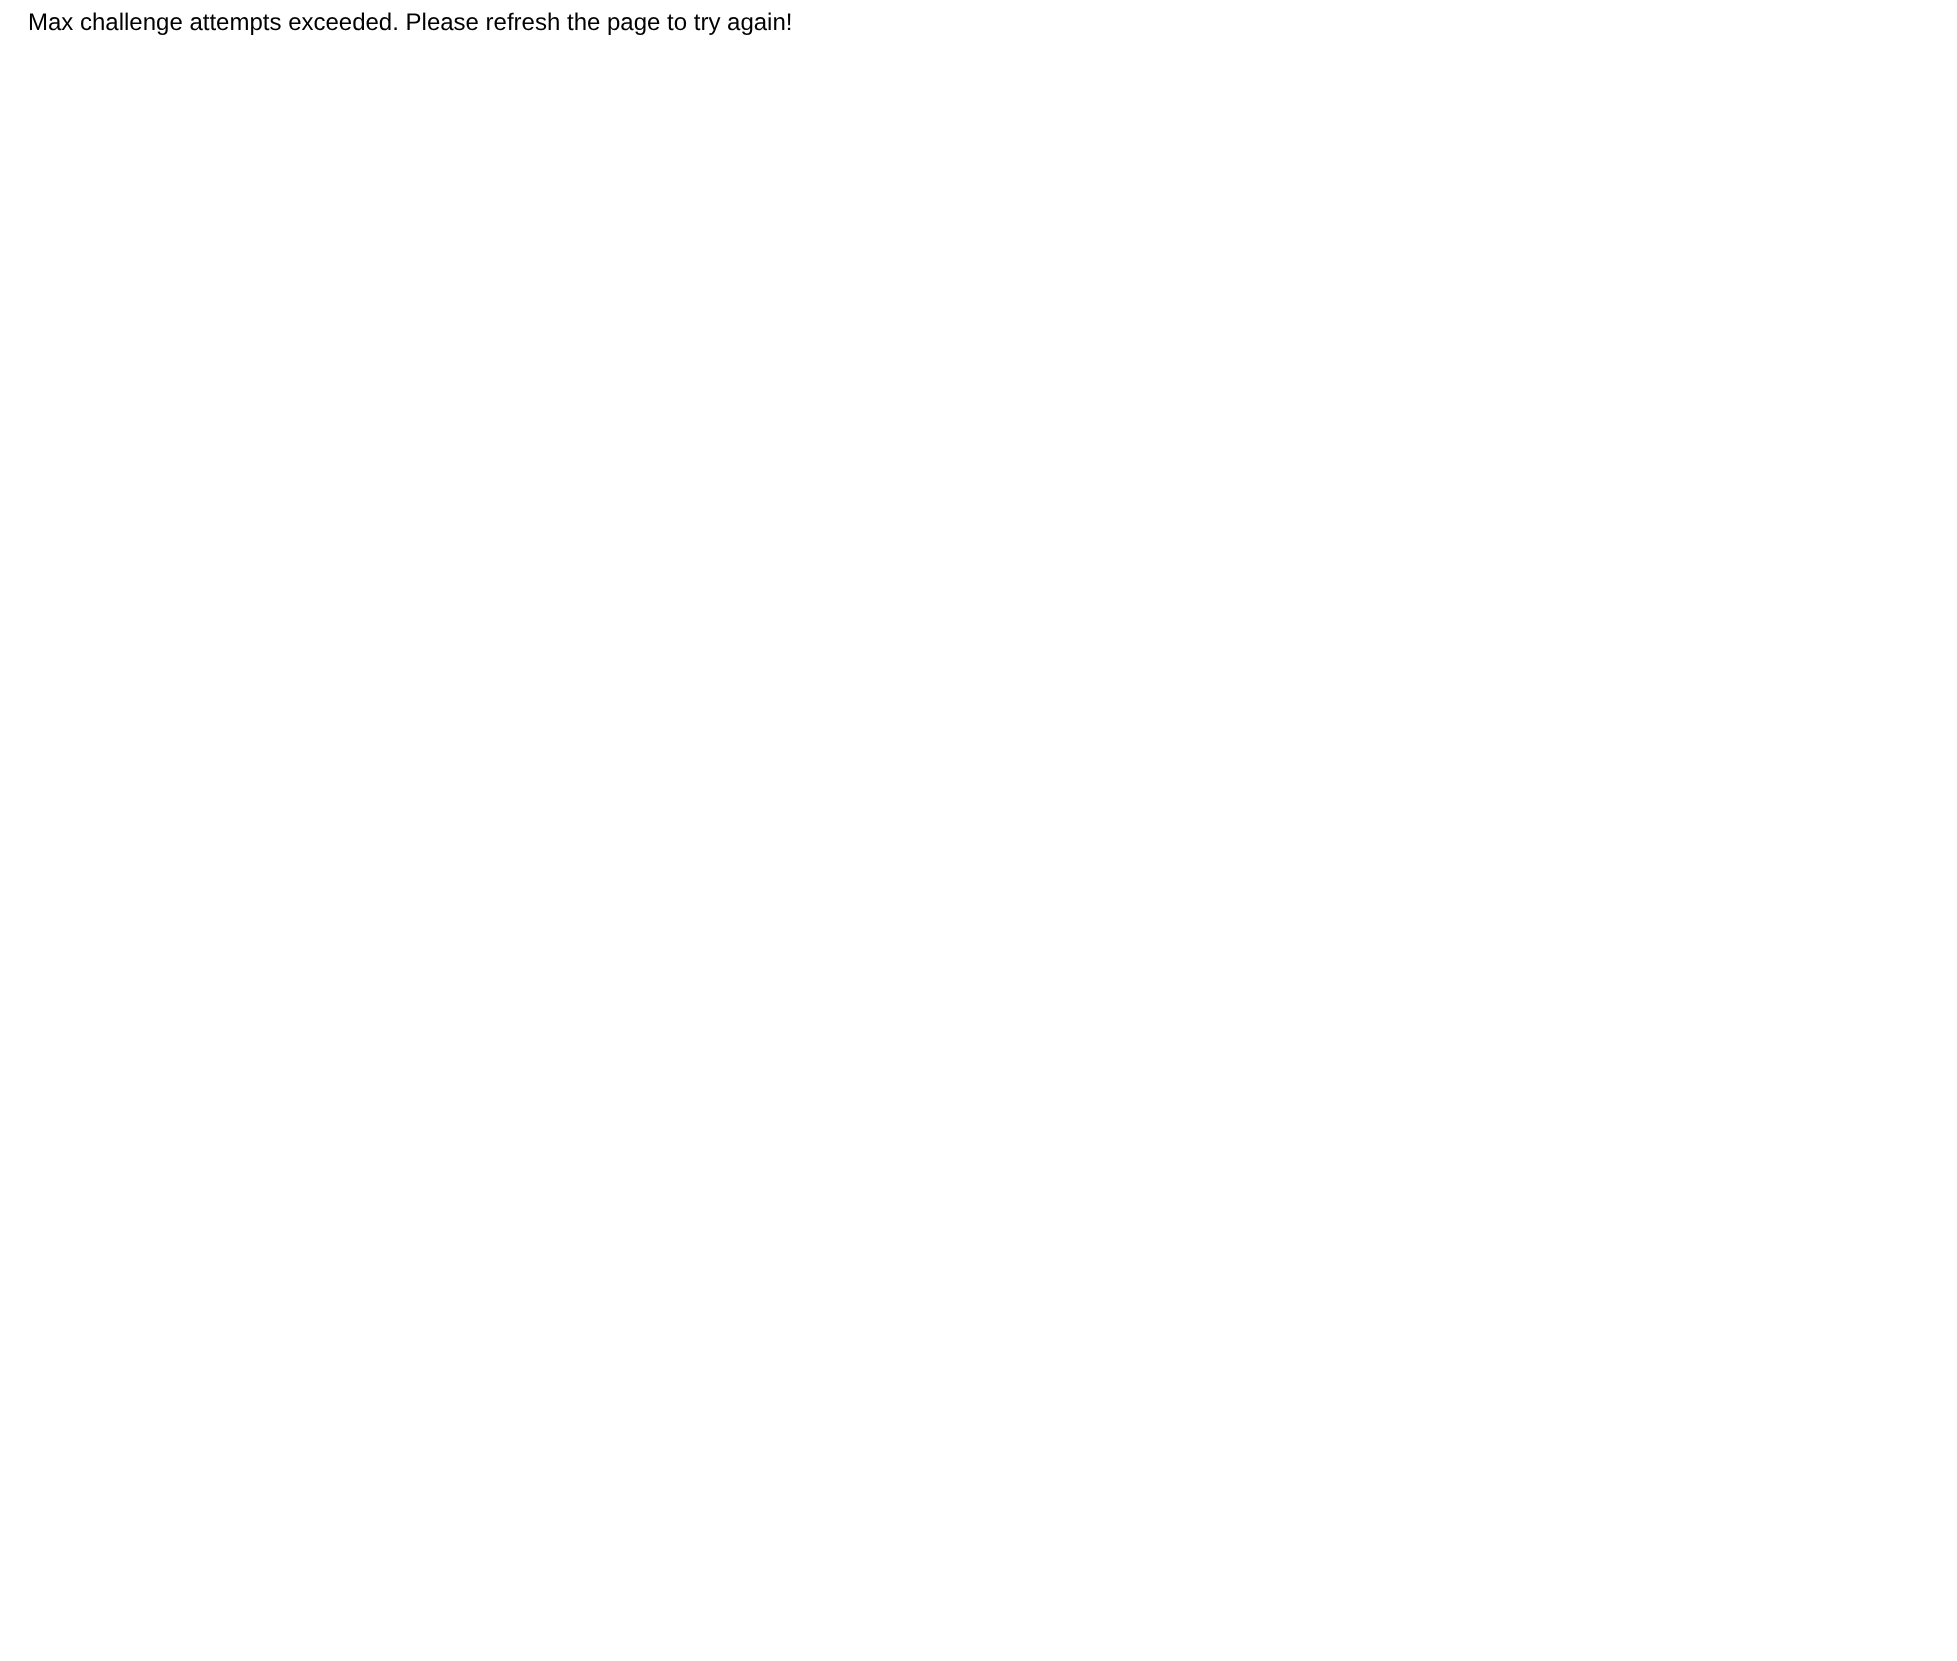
<!DOCTYPE html>
<meta charset="utf-8">
<style>body { margin: 0 } canvas { display: block }</style>
<canvas id="canvas" width="1957" height="1661"></canvas>
<script type="module">
  const canvas = document.getElementById("canvas");
  const ctx = canvas.getContext("2d");
  ctx.miterLimit = 4;
  ctx.fontKerning = "normal";

  ctx.fillStyle = "#ffffff";
  ctx.fillRect(0, 0, 1957, 1661);
  ctx.font = "24px Liberation Sans";
  ctx.fillStyle = "#000000";
  ctx.fillText("Max challenge attempts exceeded. Please refresh the page to try again!", 28, 30);
</script>
